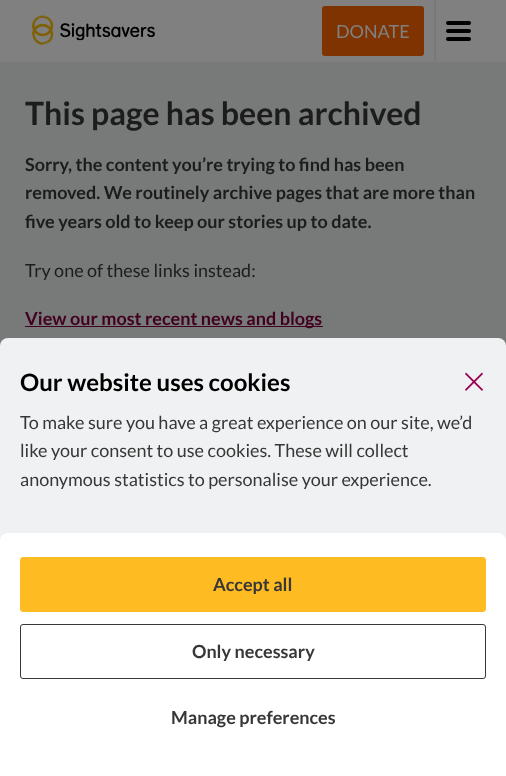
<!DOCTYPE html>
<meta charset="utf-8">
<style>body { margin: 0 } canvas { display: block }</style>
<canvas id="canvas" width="506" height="776"></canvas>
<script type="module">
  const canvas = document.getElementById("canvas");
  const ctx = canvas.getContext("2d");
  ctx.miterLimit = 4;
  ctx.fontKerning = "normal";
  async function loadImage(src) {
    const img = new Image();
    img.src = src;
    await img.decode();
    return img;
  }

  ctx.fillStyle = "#808080";
  ctx.fillRect(0, 0, 506, 776);
  ctx.drawImage(await loadImage("img1.png"), 32, 15, 123, 30);
  ctx.fillStyle = "#7e3300";
  ctx.beginPath();
  ctx.roundRect(322, 6, 102, 50, 3);
  ctx.fill();
  ctx.font = "18px Lato";
  ctx.fillStyle = "#808080";
  ctx.fillText("DONATE", 336, 38);
  ctx.fillStyle = "#787979";
  ctx.fillRect(434, 0, 2, 62);
  ctx.fillStyle = "#000000";
  ctx.beginPath();
  ctx.roundRect(446, 29, 25, 4, 2);
  ctx.fill();
  ctx.beginPath();
  ctx.roundRect(446, 21, 25, 4, 2);
  ctx.fill();
  ctx.beginPath();
  ctx.roundRect(446, 37, 25, 4, 2);
  ctx.fill();
  ctx.fillStyle = "#787979";
  ctx.fillRect(0, 62, 506, 284);
  ctx.font = "bold 32px Lato";
  ctx.fillStyle = "#1c1c1c";
  ctx.fillText("This page has been archived", 25, 125);
  ctx.font = "bold 18px Lato";
  ctx.fillText("Sorry, the content you’re trying to find has been", 25, 171);
  ctx.fillText("removed. We routinely archive pages that are more than", 25, 199);
  ctx.fillText("five years old to keep our stories up to date.", 25, 228);
  ctx.font = "18px Lato";
  ctx.fillText("Try one of these links instead:", 25, 277);
  ctx.fillStyle = "#410020";
  ctx.fillRect(25, 326, 298, 1);
  ctx.font = "bold 18px Lato";
  ctx.fillText("View our most recent news and blogs", 25, 325);
  ctx.fillStyle = "#f0f1f2";
  ctx.beginPath();
  ctx.roundRect(0, 338, 506, 208, [8, 8, 0, 0]);
  ctx.fill();
  ctx.font = "bold 24px Lato";
  ctx.fillStyle = "#000000";
  ctx.fillText("Our website uses cookies", 20, 391);
  ctx.fillStyle = "#960051";
  ctx.beginPath();
  ctx.moveTo(466, 372.5);
  ctx.lineTo(483, 389.5);
  ctx.lineTo(482, 391);
  ctx.lineTo(465, 374);
  ctx.closePath();
  ctx.fill();
  ctx.beginPath();
  ctx.moveTo(483, 374);
  ctx.lineTo(466, 391);
  ctx.lineTo(465, 389.5);
  ctx.lineTo(482, 372.5);
  ctx.closePath();
  ctx.fill();
  ctx.font = "18px Lato";
  ctx.fillStyle = "#373737";
  ctx.fillText("To make sure you have a great experience on our site, we’d", 20, 429);
  ctx.fillText("like your consent to use cookies. These will collect", 20, 457);
  ctx.fillText("anonymous statistics to personalise your experience.", 20, 486);
  ctx.fillStyle = "#ffffff";
  ctx.beginPath();
  ctx.roundRect(0, 533, 506, 243, [8, 8, 0, 0]);
  ctx.fill();
  ctx.fillStyle = "#ffbb22";
  ctx.beginPath();
  ctx.roundRect(20.5, 557.5, 465, 54, 2.5);
  ctx.fill();
  ctx.strokeStyle = "#ffbb22";
  ctx.stroke();
  ctx.font = "bold 18px Lato";
  ctx.fillStyle = "#373737";
  ctx.fillText("Accept all", 213, 591);
  ctx.beginPath();
  ctx.roundRect(20.5, 624.5, 465, 54, 2.5);
  ctx.strokeStyle = "#373737";
  ctx.stroke();
  ctx.fillText("Only necessary", 192, 658);
  ctx.fillText("Manage preferences", 171, 724);
</script>
